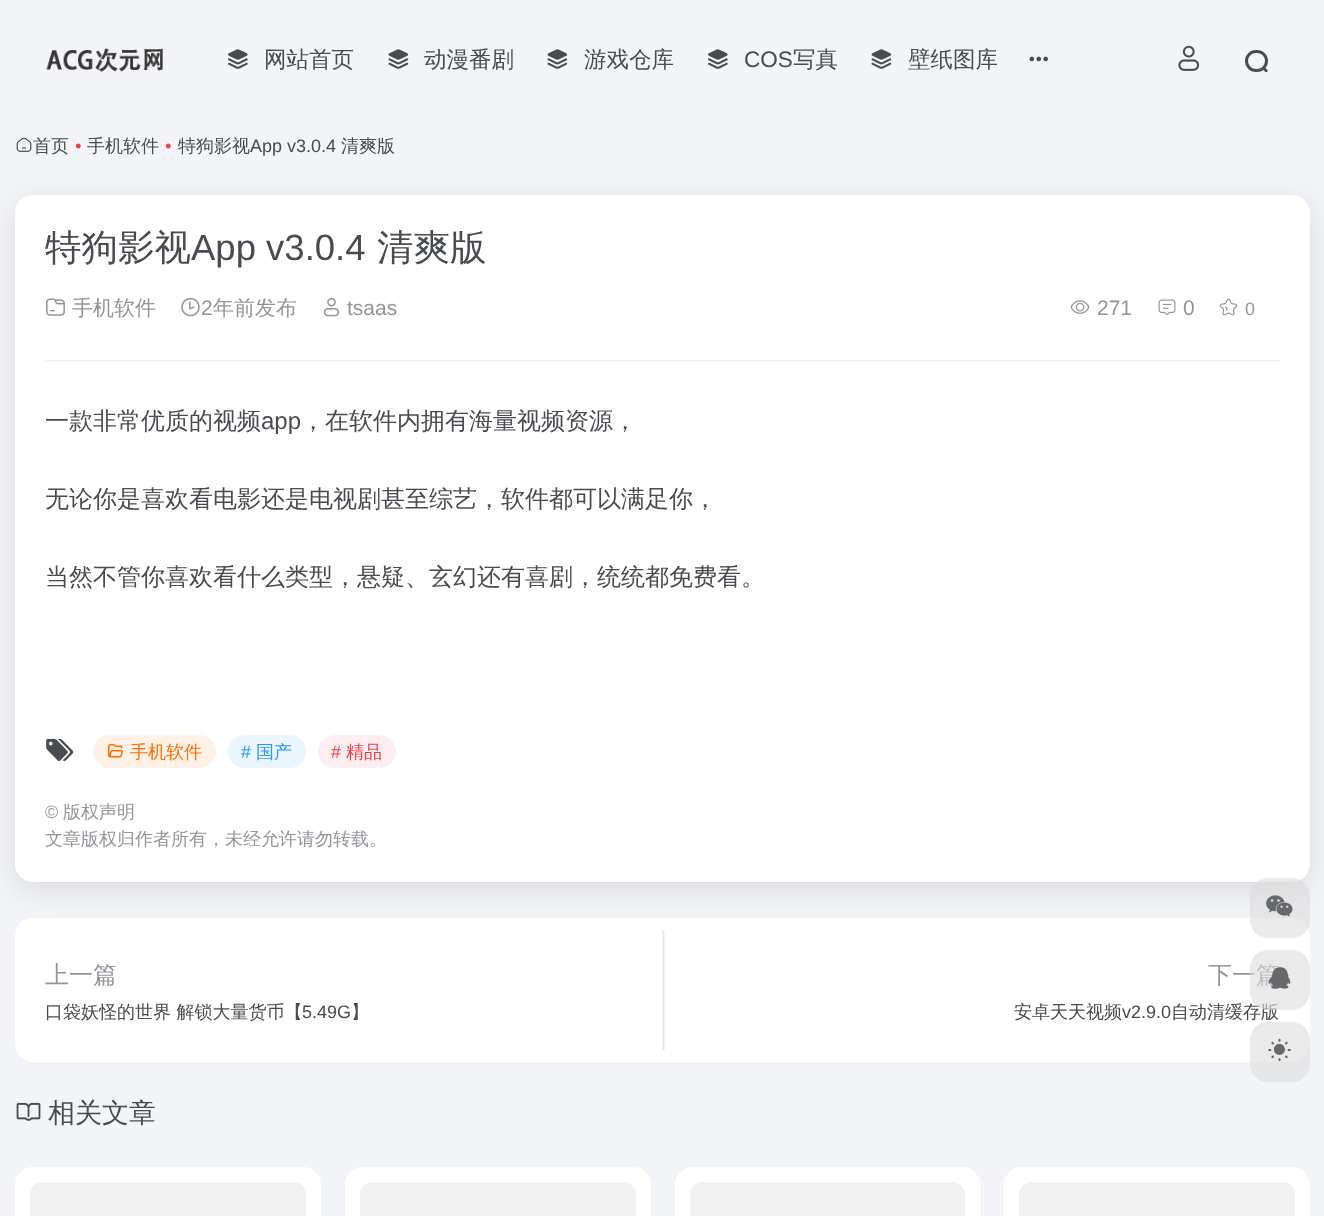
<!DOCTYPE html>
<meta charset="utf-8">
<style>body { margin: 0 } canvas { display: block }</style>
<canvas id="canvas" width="1324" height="1216"></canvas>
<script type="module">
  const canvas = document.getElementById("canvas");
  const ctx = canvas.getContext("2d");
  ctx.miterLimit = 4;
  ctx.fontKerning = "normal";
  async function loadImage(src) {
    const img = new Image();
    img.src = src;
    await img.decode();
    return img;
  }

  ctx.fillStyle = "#f2f4f7";
  ctx.fillRect(0, 0, 1324, 1216);
  ctx.drawImage(await loadImage("img1.png"), 46, 48, 118, 24);
  ctx.drawImage(await loadImage("img2.png"), 228, 49, 20, 20);
  ctx.font = "500 22.5px WenQuanYi Zen Hei";
  ctx.fillStyle = "#484b4f";
  ctx.fillText("网站首页", 264, 67);
  ctx.drawImage(await loadImage("img3.png"), 388, 49, 21, 20);
  ctx.fillText("动漫番剧", 424, 67);
  ctx.drawImage(await loadImage("img3.png"), 547, 49, 21, 20);
  ctx.fillText("游戏仓库", 584, 67);
  ctx.drawImage(await loadImage("img2.png"), 708, 49, 20, 20);
  ctx.font = "22.5px Liberation Sans";
  ctx.fillText("COS", 744, 67);
  ctx.font = "500 22.5px WenQuanYi Zen Hei";
  ctx.fillText("写真", 793, 67);
  ctx.drawImage(await loadImage("img3.png"), 871, 49, 21, 20);
  ctx.fillText("壁纸图库", 908, 67);
  ctx.drawImage(await loadImage("img4.png"), 1029, 56, 19, 6);
  ctx.drawImage(await loadImage("img5.png"), 1178, 45, 22, 26);
  ctx.beginPath();
  ctx.roundRect(1246.5, 51.5, 20, 19, 9.5);
  ctx.strokeStyle = "#484b4f";
  ctx.lineWidth = 3;
  ctx.stroke();
  ctx.beginPath();
  ctx.moveTo(1265, 67.5);
  ctx.lineTo(1267.5, 70);
  ctx.bezierCurveTo(1268, 71.5, 1267, 72.5, 1265.5, 72);
  ctx.lineTo(1263, 69.5);
  ctx.bezierCurveTo(1262, 68, 1264, 66.5, 1265, 67.5);
  ctx.closePath();
  ctx.fill();
  ctx.drawImage(await loadImage("img6.png"), 16, 137, 16, 15);
  ctx.font = "500 18px WenQuanYi Zen Hei";
  ctx.fillText("首页", 33, 152);
  ctx.font = "italic 18px Liberation Sans";
  ctx.fillStyle = "#f1404b";
  ctx.fillText("•", 75, 152);
  ctx.font = "500 18px WenQuanYi Zen Hei";
  ctx.fillStyle = "#484b4f";
  ctx.fillText("手机软件", 87, 152);
  ctx.font = "italic 18px Liberation Sans";
  ctx.fillStyle = "#f1404b";
  ctx.fillText("•", 165, 152);
  ctx.font = "500 18px WenQuanYi Zen Hei";
  ctx.fillStyle = "#484b4f";
  ctx.fillText("特狗影视", 178, 152);
  ctx.font = "18px Liberation Sans";
  ctx.fillText("App v3.0.4", 250, 152);
  ctx.font = "500 18px WenQuanYi Zen Hei";
  ctx.fillText("清爽版", 341, 152);
  ctx.fillStyle = "rgba(0, 0, 0, 0.1)";
  ctx.filter = "blur(15px)";
  ctx.beginPath();
  ctx.roundRect(15, 203, 1295, 687, 18);
  ctx.fill();
  ctx.filter = "none";
  ctx.fillStyle = "#ffffff";
  ctx.beginPath();
  ctx.roundRect(15, 195, 1295, 687, 18);
  ctx.fill();
  ctx.font = "500 36.5px WenQuanYi Zen Hei";
  ctx.fillStyle = "#484b4f";
  ctx.fillText("特狗影视", 45, 260);
  ctx.font = "36.5px Liberation Sans";
  ctx.fillText("App v3.0.4", 191, 260);
  ctx.font = "500 36.5px WenQuanYi Zen Hei";
  ctx.fillText("清爽版", 377, 260);
  ctx.fillStyle = "#f1f1f1";
  ctx.fillRect(45, 360, 1235, 2);
  ctx.drawImage(await loadImage("img7.png"), 46, 298, 19, 18);
  ctx.font = "500 21px WenQuanYi Zen Hei";
  ctx.fillStyle = "#93959a";
  ctx.fillText("手机软件", 72, 315);
  ctx.drawImage(await loadImage("img8.png"), 181, 297, 19, 20);
  ctx.font = "21px Liberation Sans";
  ctx.fillText("2", 201, 315);
  ctx.font = "500 21px WenQuanYi Zen Hei";
  ctx.fillText("年前发布", 213, 315);
  ctx.drawImage(await loadImage("img9.png"), 323, 297, 17, 20);
  ctx.font = "21px Liberation Sans";
  ctx.fillText("tsaas", 347, 315);
  ctx.drawImage(await loadImage("img10.png"), 1070, 300, 20, 14);
  ctx.fillText("271", 1097, 315);
  ctx.drawImage(await loadImage("img11.png"), 1158, 299, 18, 16);
  ctx.fillText("0", 1183, 315);
  ctx.drawImage(await loadImage("img12.png"), 1219, 298, 19, 18);
  ctx.font = "18px Liberation Sans";
  ctx.fillText("0", 1245, 315);
  ctx.font = "500 24px WenQuanYi Zen Hei";
  ctx.fillStyle = "#484b4f";
  ctx.fillText("一款非常优质的视频", 45, 429);
  ctx.font = "24px Liberation Sans";
  ctx.fillText("app", 261, 429);
  ctx.font = "500 24px WenQuanYi Zen Hei";
  ctx.fillText("，在软件内拥有海量视频资源，", 301, 429);
  ctx.fillText("无论你是喜欢看电影还是电视剧甚至综艺，软件都可以满足你，", 45, 507);
  ctx.fillText("当然不管你喜欢看什么类型，悬疑、玄幻还有喜剧，统统都免费看。", 45, 585);
  ctx.drawImage(await loadImage("img13.png"), 46, 738, 28, 23);
  ctx.fillStyle = "#fff1e6";
  ctx.beginPath();
  ctx.roundRect(93, 735, 123, 33, 16.5);
  ctx.fill();
  ctx.drawImage(await loadImage("img14.png"), 108, 744, 15, 14);
  ctx.font = "500 18px WenQuanYi Zen Hei";
  ctx.fillStyle = "#ff6f06";
  ctx.fillText("手机软件", 130, 758);
  ctx.fillStyle = "#eaf5fe";
  ctx.beginPath();
  ctx.roundRect(228, 735, 78, 33, 16.5);
  ctx.fill();
  ctx.font = "18px Liberation Sans";
  ctx.fillStyle = "#2997f7";
  ctx.fillText("#", 241, 758);
  ctx.font = "500 18px WenQuanYi Zen Hei";
  ctx.fillText("国产", 256, 758);
  ctx.fillStyle = "#ffeef1";
  ctx.beginPath();
  ctx.roundRect(318, 735, 78, 33, 16.5);
  ctx.fill();
  ctx.font = "18px Liberation Sans";
  ctx.fillStyle = "#f1404b";
  ctx.fillText("#", 331, 758);
  ctx.font = "500 18px WenQuanYi Zen Hei";
  ctx.fillText("精品", 346, 758);
  ctx.font = "18px Liberation Sans";
  ctx.fillStyle = "#93959a";
  ctx.fillText("©", 45, 818);
  ctx.font = "500 18px WenQuanYi Zen Hei";
  ctx.fillText("版权声明", 63, 818);
  ctx.fillText("文章版权归作者所有，未经允许请勿转载。", 45, 845);
  ctx.fillStyle = "#ffffff";
  ctx.beginPath();
  ctx.roundRect(15, 918, 1295, 144, 18);
  ctx.fill();
  ctx.fillStyle = "#f1f1f1";
  ctx.fillRect(664, 930, 1, 120);
  ctx.fillRect(662, 930, 1, 120);
  ctx.fillStyle = "#e5e5e5";
  ctx.fillRect(663, 930, 1, 120);
  ctx.font = "500 24px WenQuanYi Zen Hei";
  ctx.fillStyle = "#93959a";
  ctx.fillText("上一篇", 45, 983);
  ctx.font = "500 18px WenQuanYi Zen Hei";
  ctx.fillStyle = "#484b4f";
  ctx.fillText("口袋妖怪的世界 解锁大量货币【", 45, 1018);
  ctx.font = "18px Liberation Sans";
  ctx.fillText("5.49G", 302, 1018);
  ctx.font = "500 18px WenQuanYi Zen Hei";
  ctx.fillText("】", 351, 1018);
  ctx.font = "500 24px WenQuanYi Zen Hei";
  ctx.fillStyle = "#93959a";
  ctx.fillText("下一篇", 1208, 983);
  ctx.font = "500 18px WenQuanYi Zen Hei";
  ctx.fillStyle = "#484b4f";
  ctx.fillText("安卓天天视频", 1014, 1018);
  ctx.font = "18px Liberation Sans";
  ctx.fillText("v2.9.0", 1122, 1018);
  ctx.font = "500 18px WenQuanYi Zen Hei";
  ctx.fillText("自动清缓存版", 1171, 1018);
  ctx.drawImage(await loadImage("img15.png"), 16, 1102, 25, 19);
  ctx.font = "500 27px WenQuanYi Zen Hei";
  ctx.fillText("相关文章", 48, 1122);
  ctx.fillStyle = "#ffffff";
  ctx.beginPath();
  ctx.roundRect(15, 1167, 306, 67, 18);
  ctx.fill();
  ctx.fillStyle = "#f1f1f1";
  ctx.beginPath();
  ctx.roundRect(30, 1182, 276, 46, 12);
  ctx.fill();
  ctx.fillStyle = "#ffffff";
  ctx.beginPath();
  ctx.roundRect(345, 1167, 306, 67, 18);
  ctx.fill();
  ctx.fillStyle = "#f1f1f1";
  ctx.beginPath();
  ctx.roundRect(360, 1182, 276, 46, 12);
  ctx.fill();
  ctx.fillStyle = "#ffffff";
  ctx.beginPath();
  ctx.roundRect(675, 1167, 305, 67, 18);
  ctx.fill();
  ctx.fillStyle = "#f1f1f1";
  ctx.beginPath();
  ctx.roundRect(690, 1182, 275, 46, 12);
  ctx.fill();
  ctx.fillStyle = "#ffffff";
  ctx.beginPath();
  ctx.roundRect(1004, 1167, 306, 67, 18);
  ctx.fill();
  ctx.fillStyle = "#f1f1f1";
  ctx.beginPath();
  ctx.roundRect(1019, 1182, 276, 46, 12);
  ctx.fill();
  ctx.fillStyle = "rgba(220, 220, 220, 0.6)";
  ctx.beginPath();
  ctx.roundRect(1250, 878, 60, 60, 18);
  ctx.fill();
  ctx.drawImage(await loadImage("img16.png"), 1266, 895, 27, 22);
  ctx.beginPath();
  ctx.roundRect(1250, 950, 60, 60, 18);
  ctx.fill();
  ctx.drawImage(await loadImage("img17.png"), 1268, 967, 23, 22);
  ctx.beginPath();
  ctx.roundRect(1250, 1022, 60, 60, 18);
  ctx.fill();
  ctx.drawImage(await loadImage("img18.png"), 1268, 1038, 23, 24);
</script>
